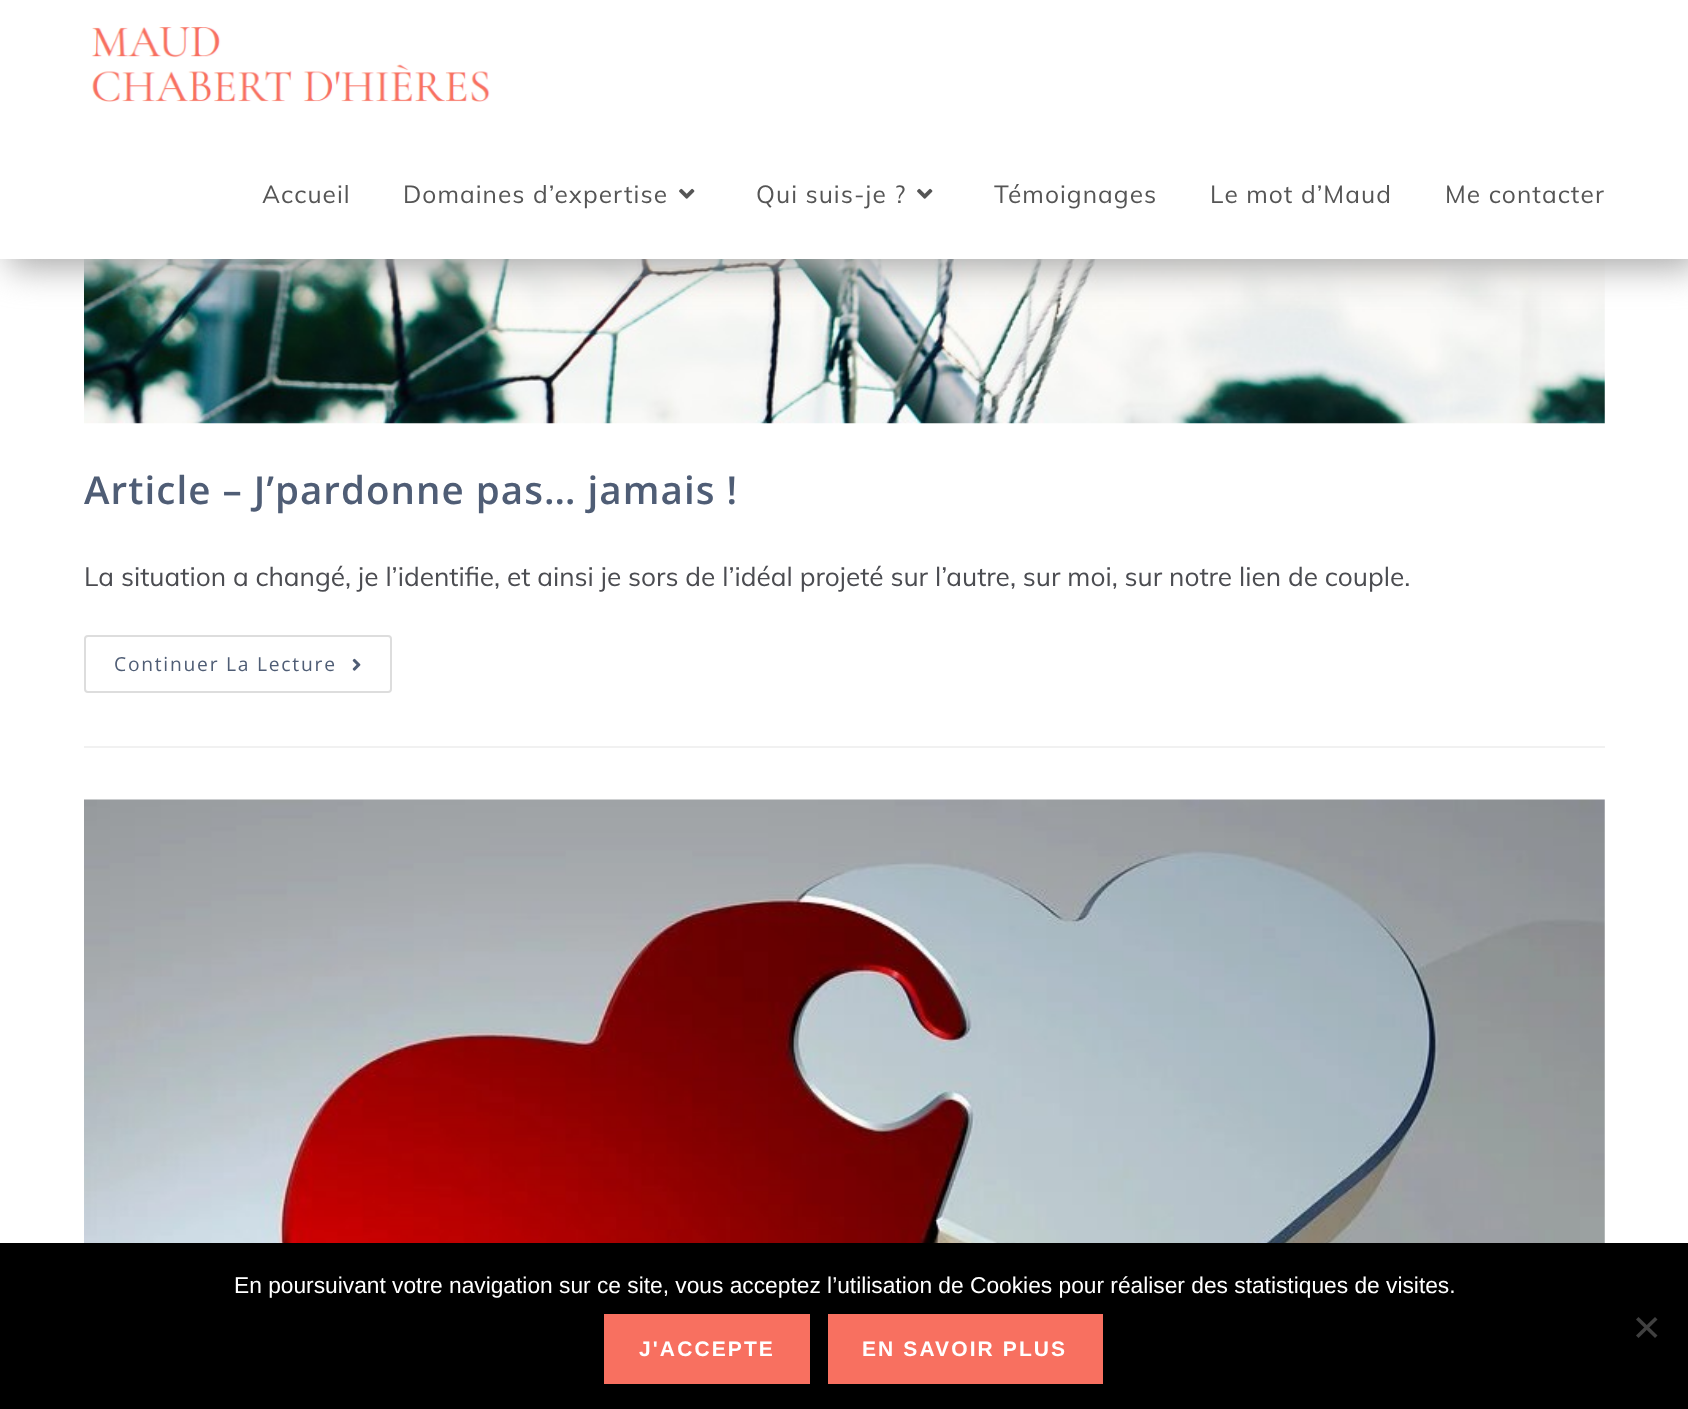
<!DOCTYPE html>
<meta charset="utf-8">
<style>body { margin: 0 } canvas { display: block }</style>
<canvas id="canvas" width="1688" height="1409"></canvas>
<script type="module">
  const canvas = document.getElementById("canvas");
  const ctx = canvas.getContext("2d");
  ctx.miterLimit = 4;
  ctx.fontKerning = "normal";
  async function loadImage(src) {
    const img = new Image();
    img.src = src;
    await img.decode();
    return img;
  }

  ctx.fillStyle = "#ffffff";
  ctx.fillRect(0, 0, 1688, 1409);
  ctx.drawImage(await loadImage("img3.png"), 84, 259, 1521, 165);
  ctx.fillStyle = "#aaaaaa";
  ctx.filter = "blur(17.5px)";
  ctx.beginPath();
  ctx.rect(9, 9, 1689, 259);
  ctx.fill();
  ctx.filter = "none";
  ctx.fillStyle = "#ffffff";
  ctx.fillRect(0, 0, 1688, 259);
  ctx.drawImage(await loadImage("img1.png"), 91, 27, 399, 75);
  ctx.letterSpacing = "1.05px";
  ctx.font = "24.5px Muli";
  ctx.fillStyle = "#555555";
  ctx.fillText("Accueil", 262, 203);
  ctx.fillText("Domaines d’expertise", 403, 203);
  ctx.drawImage(await loadImage("img2.png"), 679, 188, 16, 11);
  ctx.fillText("Qui suis-je ?", 756, 203);
  ctx.drawImage(await loadImage("img2.png"), 917, 188, 16, 11);
  ctx.fillText("Témoignages", 994, 203);
  ctx.fillText("Le mot d’Maud", 1210, 203);
  ctx.fillText("Me contacter", 1445, 203);
  ctx.fillStyle = "#f1f1f1";
  ctx.fillRect(84, 746, 1521, 2);
  ctx.font = "600 38.5px Open Sans";
  ctx.fillStyle = "#4f5d75";
  ctx.fillText("Article – J’pardonne pas… jamais !", 84, 504);
  ctx.letterSpacing = "0px";
  ctx.font = "26.25px Muli";
  ctx.fillStyle = "#4b4c51";
  ctx.fillText("La situation a changé, je l’identifie, et ainsi je sors de l’idéal projeté sur l’autre, sur moi, sur notre lien de couple.", 84, 586);
  ctx.beginPath();
  ctx.roundRect(85, 636, 306, 56, 3);
  ctx.strokeStyle = "#dddddd";
  ctx.lineWidth = 2;
  ctx.stroke();
  ctx.letterSpacing = "1.75px";
  ctx.font = "19.25px Open Sans";
  ctx.fillStyle = "#4f5d75";
  ctx.fillText("Continuer La Lecture", 114, 671);
  ctx.drawImage(await loadImage("img4.png"), 352, 658, 9, 13);
  ctx.drawImage(await loadImage("img5.png"), 84, 799, 1521, 444);
  ctx.fillStyle = "#000000";
  ctx.fillRect(0, 1243, 1688, 166);
  ctx.letterSpacing = "0px";
  ctx.font = "22.75px Liberation Sans";
  ctx.fillStyle = "#ffffff";
  ctx.fillText("En poursuivant votre navigation sur ce site, vous acceptez l’utilisation de Cookies pour réaliser des statistiques de visites.", 234, 1293);
  ctx.fillStyle = "#404040";
  ctx.beginPath();
  ctx.moveTo(1655, 1317);
  ctx.lineTo(1657.5, 1319.5);
  ctx.lineTo(1638.5, 1338);
  ctx.lineTo(1636, 1335.5);
  ctx.closePath();
  ctx.fill();
  ctx.beginPath();
  ctx.moveTo(1636, 1319.5);
  ctx.lineTo(1638.5, 1317);
  ctx.lineTo(1657.5, 1335.5);
  ctx.lineTo(1655, 1338);
  ctx.closePath();
  ctx.fill();
  ctx.fillStyle = "#f87060";
  ctx.fillRect(604, 1314, 206, 70);
  ctx.letterSpacing = "2.1px";
  ctx.font = "bold 21px Liberation Sans";
  ctx.fillStyle = "#ffffff";
  ctx.fillText("J'ACCEPTE", 639, 1356);
  ctx.fillStyle = "#f87060";
  ctx.fillRect(828, 1314, 275, 70);
  ctx.fillStyle = "#ffffff";
  ctx.fillText("EN SAVOIR PLUS", 862, 1356);
</script>
